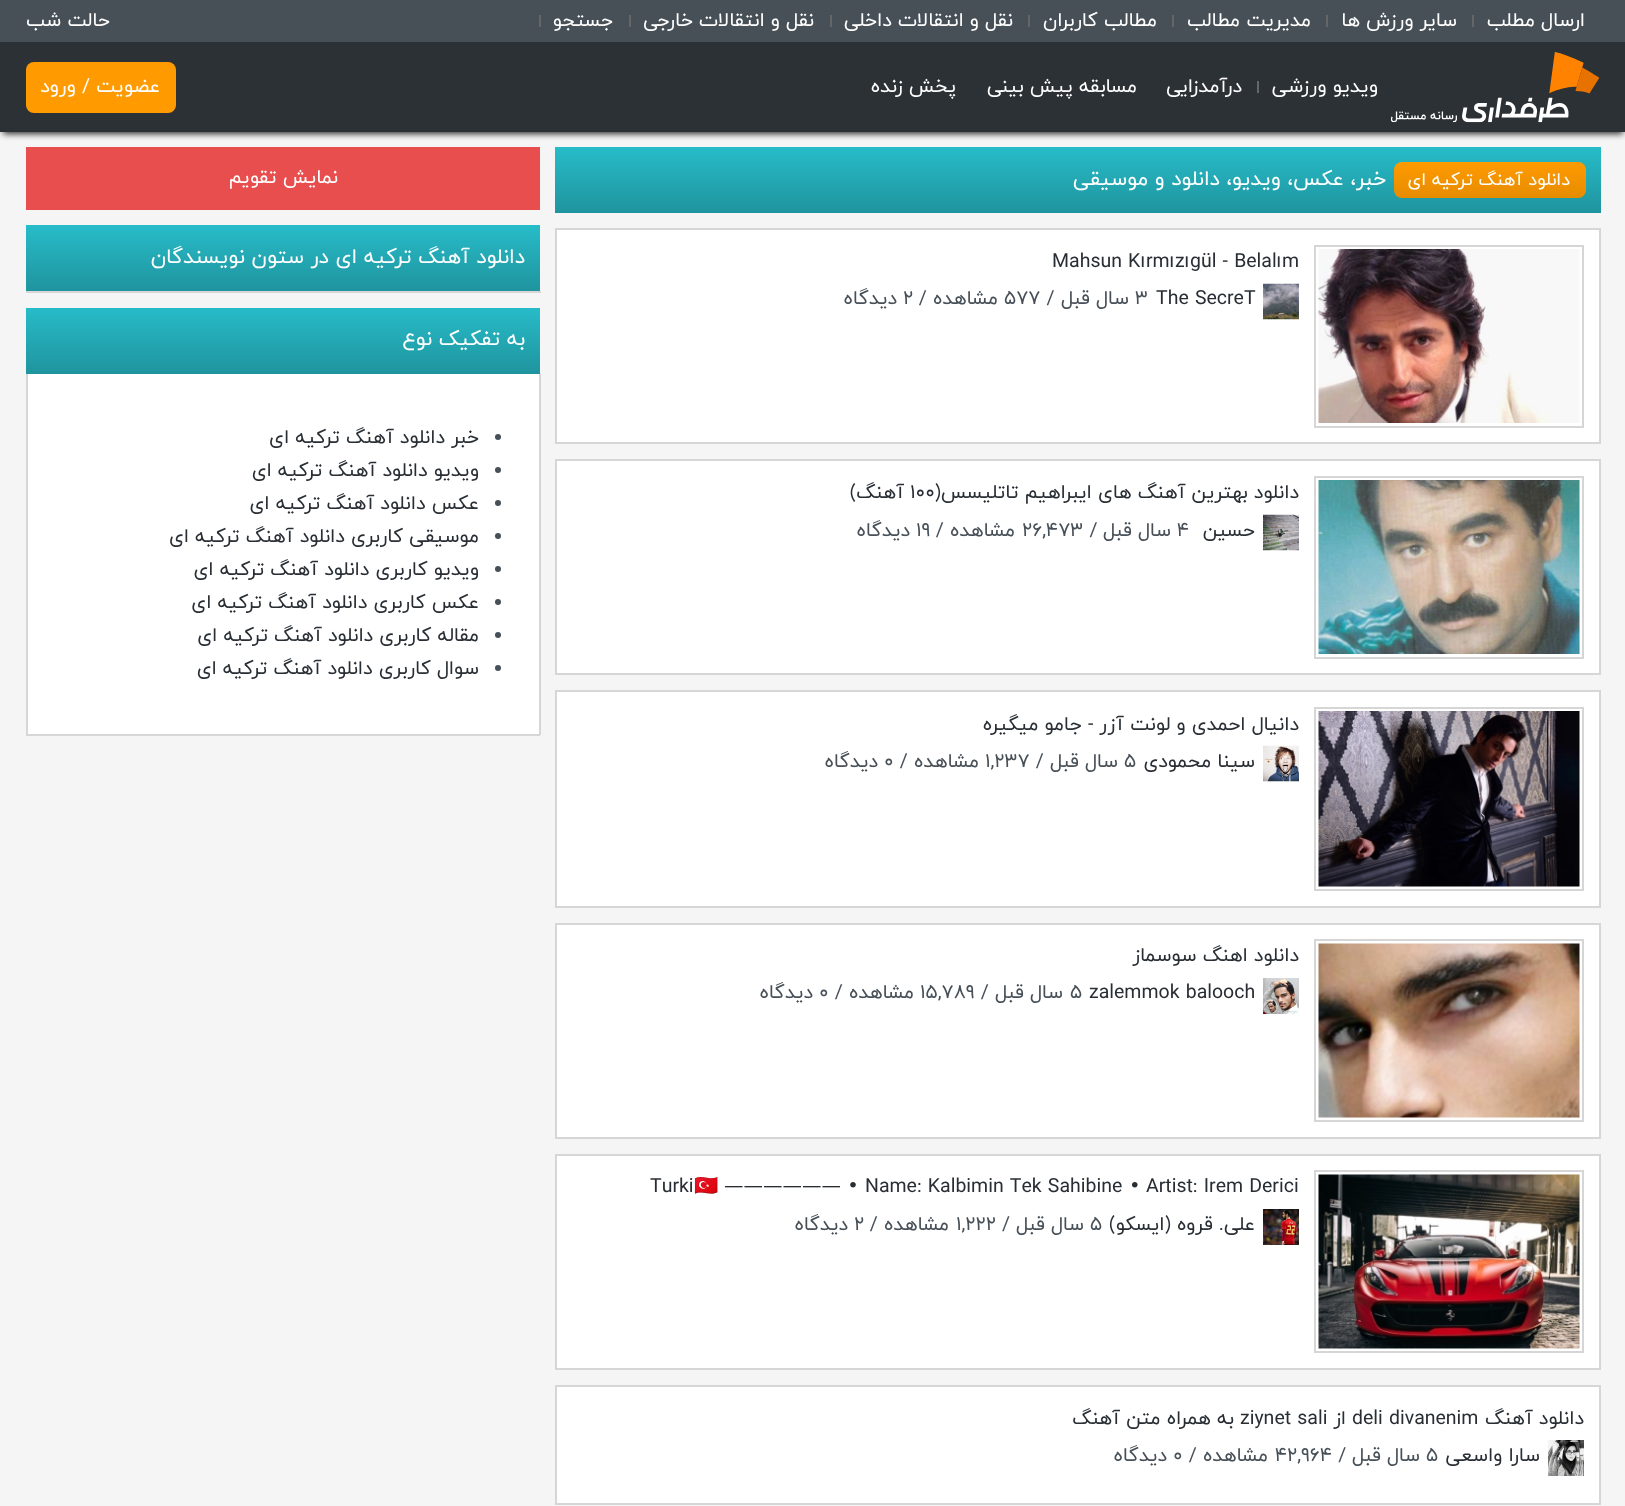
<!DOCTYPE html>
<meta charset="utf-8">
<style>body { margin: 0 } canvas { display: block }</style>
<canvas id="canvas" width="1625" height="1506"></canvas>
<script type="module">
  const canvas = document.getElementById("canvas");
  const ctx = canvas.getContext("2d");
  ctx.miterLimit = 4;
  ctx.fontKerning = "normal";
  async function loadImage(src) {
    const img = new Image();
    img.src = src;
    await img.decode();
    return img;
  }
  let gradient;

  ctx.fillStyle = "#f5f5f5";
  ctx.fillRect(0, 0, 1625, 1506);
  ctx.fillStyle = "#474f57";
  ctx.fillRect(0, 0, 1625, 42);
  ctx.direction = "rtl";
  ctx.font = "19.5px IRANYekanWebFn";
  ctx.fillStyle = "#ffffff";
  ctx.fillText("ارسال مطلب", 1585, 26);
  ctx.fillStyle = "#666666";
  ctx.fillRect(1472, 15, 2, 12);
  ctx.fillStyle = "#ffffff";
  ctx.fillText("سایر ورزش ها", 1457, 26);
  ctx.fillStyle = "#666666";
  ctx.fillRect(1326, 15, 2, 12);
  ctx.fillStyle = "#ffffff";
  ctx.fillText("مدیریت مطالب", 1311, 26);
  ctx.fillStyle = "#666666";
  ctx.fillRect(1172, 15, 2, 12);
  ctx.fillStyle = "#ffffff";
  ctx.fillText("مطالب کاربران", 1157, 26);
  ctx.fillStyle = "#666666";
  ctx.fillRect(1028, 15, 2, 12);
  ctx.fillStyle = "#ffffff";
  ctx.fillText("نقل و انتقالات داخلی", 1013, 26);
  ctx.fillStyle = "#666666";
  ctx.fillRect(830, 15, 2, 12);
  ctx.fillStyle = "#ffffff";
  ctx.fillText("نقل و انتقالات خارجی", 814, 26);
  ctx.fillStyle = "#666666";
  ctx.fillRect(629, 15, 2, 12);
  ctx.fillStyle = "#ffffff";
  ctx.fillText("جستجو", 613, 26);
  ctx.fillStyle = "#666666";
  ctx.fillRect(539, 15, 2, 12);
  ctx.fillStyle = "#ffffff";
  ctx.fillText("حالت شب", 110, 26);
  ctx.fillStyle = "rgba(0, 0, 0, 0.8)";
  ctx.filter = "blur(3px)";
  ctx.beginPath();
  ctx.rect(3, 50, 1620, 84);
  ctx.fill();
  ctx.filter = "none";
  ctx.fillStyle = "#2c3136";
  ctx.fillRect(0, 42, 1625, 90);
  ctx.drawImage(await loadImage("img1.png"), 1391, 51, 209, 72);
  ctx.fillStyle = "#ffffff";
  ctx.fillText("ویدیو ورزشی", 1378, 92);
  ctx.fillStyle = "#666666";
  ctx.fillRect(1257, 81, 2, 12);
  ctx.fillStyle = "#ffffff";
  ctx.fillText("درآمدزایی", 1242, 92);
  ctx.fillText("مسابقه پیش بینی", 1137, 92);
  ctx.fillText("پخش زنده", 956, 92);
  ctx.fillStyle = "#ff9b00";
  ctx.beginPath();
  ctx.roundRect(26, 62, 150, 51, 8);
  ctx.fill();
  ctx.fillStyle = "#ffffff";
  ctx.fillText("عضویت / ورود", 160, 92);
  gradient = ctx.createLinearGradient(1078, 147, 1078, 213);
  gradient.addColorStop(0, "#27bcc9");
  gradient.addColorStop(1, "#1f949e");
  ctx.fillStyle = gradient;
  ctx.fillRect(555, 147, 1046, 66);
  gradient = ctx.createLinearGradient(1490, 162, 1490, 198);
  gradient.addColorStop(0, "#ff9b00");
  gradient.addColorStop(1, "#e68c00");
  ctx.fillStyle = gradient;
  ctx.beginPath();
  ctx.roundRect(1394, 162, 192, 36, 8);
  ctx.fill();
  ctx.font = "18px IRANYekanWebFn";
  ctx.fillStyle = "#ffffff";
  ctx.fillText("دانلود آهنگ ترکیه ای", 1570, 185);
  ctx.font = "21px IRANYekanWebFn";
  ctx.fillText("خبر، عکس، ویدیو، دانلود و موسیقی", 1386, 185);
  ctx.beginPath();
  ctx.rect(556, 229, 1044, 214);
  ctx.fill();
  ctx.strokeStyle = "#d6d6d6";
  ctx.lineWidth = 2;
  ctx.stroke();
  ctx.strokeRect(1315, 246, 268, 181);
  ctx.drawImage(await loadImage("img2.png"), 1318, 249, 262, 174);
  ctx.direction = "ltr";
  ctx.font = "19.5px IRANYekanWebFn";
  ctx.fillStyle = "#282e34";
  ctx.fillText("m", 1282, 267);
  ctx.font = "19.5px DejaVu Sans";
  ctx.fillText("ı", 1276, 267);
  ctx.font = "19.5px IRANYekanWebFn";
  ctx.fillText("gül - Belal", 1190, 267);
  ctx.font = "19.5px DejaVu Sans";
  ctx.fillText("ı", 1184, 267);
  ctx.font = "19.5px IRANYekanWebFn";
  ctx.fillText("z", 1175, 267);
  ctx.font = "19.5px DejaVu Sans";
  ctx.fillText("ı", 1169, 267);
  ctx.font = "19.5px IRANYekanWebFn";
  ctx.fillText("rm", 1146, 267);
  ctx.font = "19.5px DejaVu Sans";
  ctx.fillText("ı", 1140, 267);
  ctx.font = "19.5px IRANYekanWebFn";
  ctx.fillText("Mahsun K", 1052, 267);
  ctx.drawImage(await loadImage("img3.png"), 1263, 283, 36, 37);
  ctx.fillText("The SecreT", 1156, 304);
  ctx.fillStyle = "#474f57";
  ctx.fillText("3", 1135, 304);
  ctx.direction = "rtl";
  ctx.fillText("سال قبل", 1129, 304);
  ctx.direction = "ltr";
  ctx.fillText("577 /", 1004, 304);
  ctx.direction = "rtl";
  ctx.fillText("مشاهده /", 998, 304);
  ctx.direction = "ltr";
  ctx.fillText("2", 903, 304);
  ctx.direction = "rtl";
  ctx.fillText("دیدگاه", 897, 304);
  ctx.fillStyle = "#ffffff";
  ctx.beginPath();
  ctx.rect(556, 460, 1044, 214);
  ctx.fill();
  ctx.stroke();
  ctx.strokeRect(1315, 477, 268, 181);
  ctx.drawImage(await loadImage("img4.png"), 1318, 480, 262, 174);
  ctx.fillStyle = "#282e34";
  ctx.fillText("دانلود بهترین آهنگ های ایبراهیم تاتلیسس(", 1299, 498);
  ctx.direction = "ltr";
  ctx.fillText("100", 910, 498);
  ctx.direction = "rtl";
  ctx.fillText("آهنگ)", 904, 498);
  ctx.drawImage(await loadImage("img5.png"), 1263, 514, 36, 37);
  ctx.fillText("حسین ‌‌", 1255, 536);
  ctx.direction = "ltr";
  ctx.fillStyle = "#474f57";
  ctx.fillText("4", 1177, 536);
  ctx.direction = "rtl";
  ctx.fillText("سال قبل", 1171, 536);
  ctx.direction = "ltr";
  ctx.fillText("26,473 /", 1022, 536);
  ctx.direction = "rtl";
  ctx.fillText("مشاهده /", 1015, 536);
  ctx.direction = "ltr";
  ctx.fillText("19", 916, 536);
  ctx.direction = "rtl";
  ctx.fillText("دیدگاه", 910, 536);
  ctx.fillStyle = "#ffffff";
  ctx.beginPath();
  ctx.rect(556, 691, 1044, 216);
  ctx.fill();
  ctx.stroke();
  ctx.strokeRect(1315, 708, 268, 182);
  ctx.drawImage(await loadImage("img6.png"), 1318, 711, 262, 176);
  ctx.fillStyle = "#282e34";
  ctx.fillText("دانیال احمدی و لونت آزر - جامو میگیره", 1299, 730);
  ctx.drawImage(await loadImage("img7.png"), 1263, 745, 36, 37);
  ctx.fillText("سینا محمودی", 1255, 767);
  ctx.direction = "ltr";
  ctx.fillStyle = "#474f57";
  ctx.fillText("5", 1124, 767);
  ctx.direction = "rtl";
  ctx.fillText("سال قبل", 1118, 767);
  ctx.direction = "ltr";
  ctx.fillText("1,237 /", 985, 767);
  ctx.direction = "rtl";
  ctx.fillText("مشاهده /", 979, 767);
  ctx.direction = "ltr";
  ctx.fillText("0", 884, 767);
  ctx.direction = "rtl";
  ctx.fillText("دیدگاه", 878, 767);
  ctx.fillStyle = "#ffffff";
  ctx.beginPath();
  ctx.rect(556, 924, 1044, 214);
  ctx.fill();
  ctx.stroke();
  ctx.strokeRect(1315, 940, 268, 181);
  ctx.drawImage(await loadImage("img8.png"), 1318, 943, 262, 175);
  ctx.fillStyle = "#282e34";
  ctx.fillText("دانلود اهنگ سوسماز", 1299, 961);
  ctx.drawImage(await loadImage("img9.png"), 1263, 978, 36, 36);
  ctx.direction = "ltr";
  ctx.fillText("zalemmok balooch", 1089, 998);
  ctx.fillStyle = "#474f57";
  ctx.fillText("5", 1070, 998);
  ctx.direction = "rtl";
  ctx.fillText("سال قبل", 1063, 998);
  ctx.direction = "ltr";
  ctx.fillText("15,789 /", 920, 998);
  ctx.direction = "rtl";
  ctx.fillText("مشاهده /", 914, 998);
  ctx.direction = "ltr";
  ctx.fillText("0", 819, 998);
  ctx.direction = "rtl";
  ctx.fillText("دیدگاه", 813, 998);
  ctx.fillStyle = "#ffffff";
  ctx.beginPath();
  ctx.rect(556, 1155, 1044, 214);
  ctx.fill();
  ctx.stroke();
  ctx.strokeRect(1315, 1171, 268, 181);
  ctx.drawImage(await loadImage("img10.png"), 1318, 1174, 262, 175);
  ctx.direction = "ltr";
  ctx.fillStyle = "#282e34";
  ctx.fillText("Artist: Irem Derici", 1146, 1192);
  ctx.font = "19.5px DejaVu Sans";
  ctx.fillText("•", 1129, 1192);
  ctx.font = "19.5px IRANYekanWebFn";
  ctx.fillText("Name: Kalbimin Tek Sahibine", 865, 1192);
  ctx.font = "19.5px DejaVu Sans";
  ctx.fillText("—————— •", 724, 1192);
  ctx.font = "19.5px Noto Color Emoji";
  ctx.fillText("🇹🇷", 694, 1192);
  ctx.font = "19.5px IRANYekanWebFn";
  ctx.fillText("Turki", 650, 1192);
  ctx.drawImage(await loadImage("img11.png"), 1263, 1209, 36, 36);
  ctx.direction = "rtl";
  ctx.fillText("علی. قروه (ایسکو)", 1255, 1230);
  ctx.direction = "ltr";
  ctx.fillStyle = "#474f57";
  ctx.fillText("5", 1090, 1230);
  ctx.direction = "rtl";
  ctx.fillText("سال قبل", 1084, 1230);
  ctx.direction = "ltr";
  ctx.fillText("1,222 /", 956, 1230);
  ctx.direction = "rtl";
  ctx.fillText("مشاهده /", 949, 1230);
  ctx.direction = "ltr";
  ctx.fillText("2", 854, 1230);
  ctx.direction = "rtl";
  ctx.fillText("دیدگاه", 848, 1230);
  ctx.fillStyle = "#ffffff";
  ctx.beginPath();
  ctx.rect(556, 1386, 1044, 118);
  ctx.fill();
  ctx.stroke();
  ctx.fillStyle = "#282e34";
  ctx.fillText("دانلود آهنگ", 1584, 1424);
  ctx.direction = "ltr";
  ctx.fillText("deli divanenim", 1352, 1424);
  ctx.direction = "rtl";
  ctx.fillText("از", 1346, 1424);
  ctx.direction = "ltr";
  ctx.fillText("ziynet sali", 1240, 1424);
  ctx.direction = "rtl";
  ctx.fillText("به همراه متن آهنگ", 1234, 1424);
  ctx.drawImage(await loadImage("img12.png"), 1548, 1440, 36, 36);
  ctx.fillText("سارا واسعی", 1540, 1461);
  ctx.direction = "ltr";
  ctx.fillStyle = "#474f57";
  ctx.fillText("5", 1426, 1461);
  ctx.direction = "rtl";
  ctx.fillText("سال قبل", 1420, 1461);
  ctx.direction = "ltr";
  ctx.fillText("42,964 /", 1275, 1461);
  ctx.direction = "rtl";
  ctx.fillText("مشاهده /", 1268, 1461);
  ctx.direction = "ltr";
  ctx.fillText("0", 1173, 1461);
  ctx.direction = "rtl";
  ctx.fillText("دیدگاه", 1167, 1461);
  ctx.fillStyle = "#e84e4e";
  ctx.fillRect(26, 147, 514, 63);
  ctx.fillStyle = "#ffffff";
  ctx.fillText("نمایش تقویم", 338, 183);
  gradient = ctx.createLinearGradient(283, 225, 283, 291);
  gradient.addColorStop(0, "#27bcc9");
  gradient.addColorStop(1, "#1f949e");
  ctx.fillStyle = gradient;
  ctx.fillRect(26, 225, 514, 66);
  ctx.font = "21px IRANYekanWebFn";
  ctx.fillStyle = "#ffffff";
  ctx.fillText("دانلود آهنگ ترکیه ای در ستون نویسندگان", 525, 263);
  ctx.fillStyle = "#d6d6d6";
  ctx.fillRect(26, 291, 515, 2);
  gradient = ctx.createLinearGradient(283, 307, 283, 374);
  gradient.addColorStop(0, "#27bcc9");
  gradient.addColorStop(1, "#1f949e");
  ctx.fillStyle = gradient;
  ctx.fillRect(26, 308, 514, 66);
  ctx.fillStyle = "#ffffff";
  ctx.fillText("به تفکیک نوع", 525, 345);
  ctx.fillRect(28, 374, 511, 360);
  ctx.fillStyle = "#d6d6d6";
  ctx.fillRect(539, 374, 2, 361);
  ctx.fillRect(26, 734, 514, 2);
  ctx.fillRect(26, 374, 2, 361);
  ctx.fillStyle = "#474f57";
  ctx.beginPath();
  ctx.arc(498, 437, 3, 0, Math.PI * 2);
  ctx.fill();
  ctx.font = "19.5px IRANYekanWebFn";
  ctx.fillStyle = "#282e34";
  ctx.fillText("خبر دانلود آهنگ ترکیه ای", 479, 443);
  ctx.fillStyle = "#474f57";
  ctx.beginPath();
  ctx.arc(498, 470, 3, 0, Math.PI * 2);
  ctx.fill();
  ctx.fillStyle = "#282e34";
  ctx.fillText("ویدیو دانلود آهنگ ترکیه ای", 479, 476);
  ctx.fillStyle = "#474f57";
  ctx.beginPath();
  ctx.arc(498, 503, 3, 0, Math.PI * 2);
  ctx.fill();
  ctx.fillStyle = "#282e34";
  ctx.fillText("عکس دانلود آهنگ ترکیه ای", 479, 509);
  ctx.fillStyle = "#474f57";
  ctx.beginPath();
  ctx.arc(498, 536, 3, 0, Math.PI * 2);
  ctx.fill();
  ctx.fillStyle = "#282e34";
  ctx.fillText("موسیقی کاربری دانلود آهنگ ترکیه ای", 479, 542);
  ctx.fillStyle = "#474f57";
  ctx.beginPath();
  ctx.arc(498, 569, 3, 0, Math.PI * 2);
  ctx.fill();
  ctx.fillStyle = "#282e34";
  ctx.fillText("ویدیو کاربری دانلود آهنگ ترکیه ای", 479, 575);
  ctx.fillStyle = "#474f57";
  ctx.beginPath();
  ctx.arc(498, 602, 3, 0, Math.PI * 2);
  ctx.fill();
  ctx.fillStyle = "#282e34";
  ctx.fillText("عکس کاربری دانلود آهنگ ترکیه ای", 479, 608);
  ctx.fillStyle = "#474f57";
  ctx.beginPath();
  ctx.arc(498, 635, 3, 0, Math.PI * 2);
  ctx.fill();
  ctx.fillStyle = "#282e34";
  ctx.fillText("مقاله کاربری دانلود آهنگ ترکیه ای", 479, 641);
  ctx.fillStyle = "#474f57";
  ctx.beginPath();
  ctx.arc(498, 668, 3, 0, Math.PI * 2);
  ctx.fill();
  ctx.fillStyle = "#282e34";
  ctx.fillText("سوال کاربری دانلود آهنگ ترکیه ای", 479, 674);
</script>
